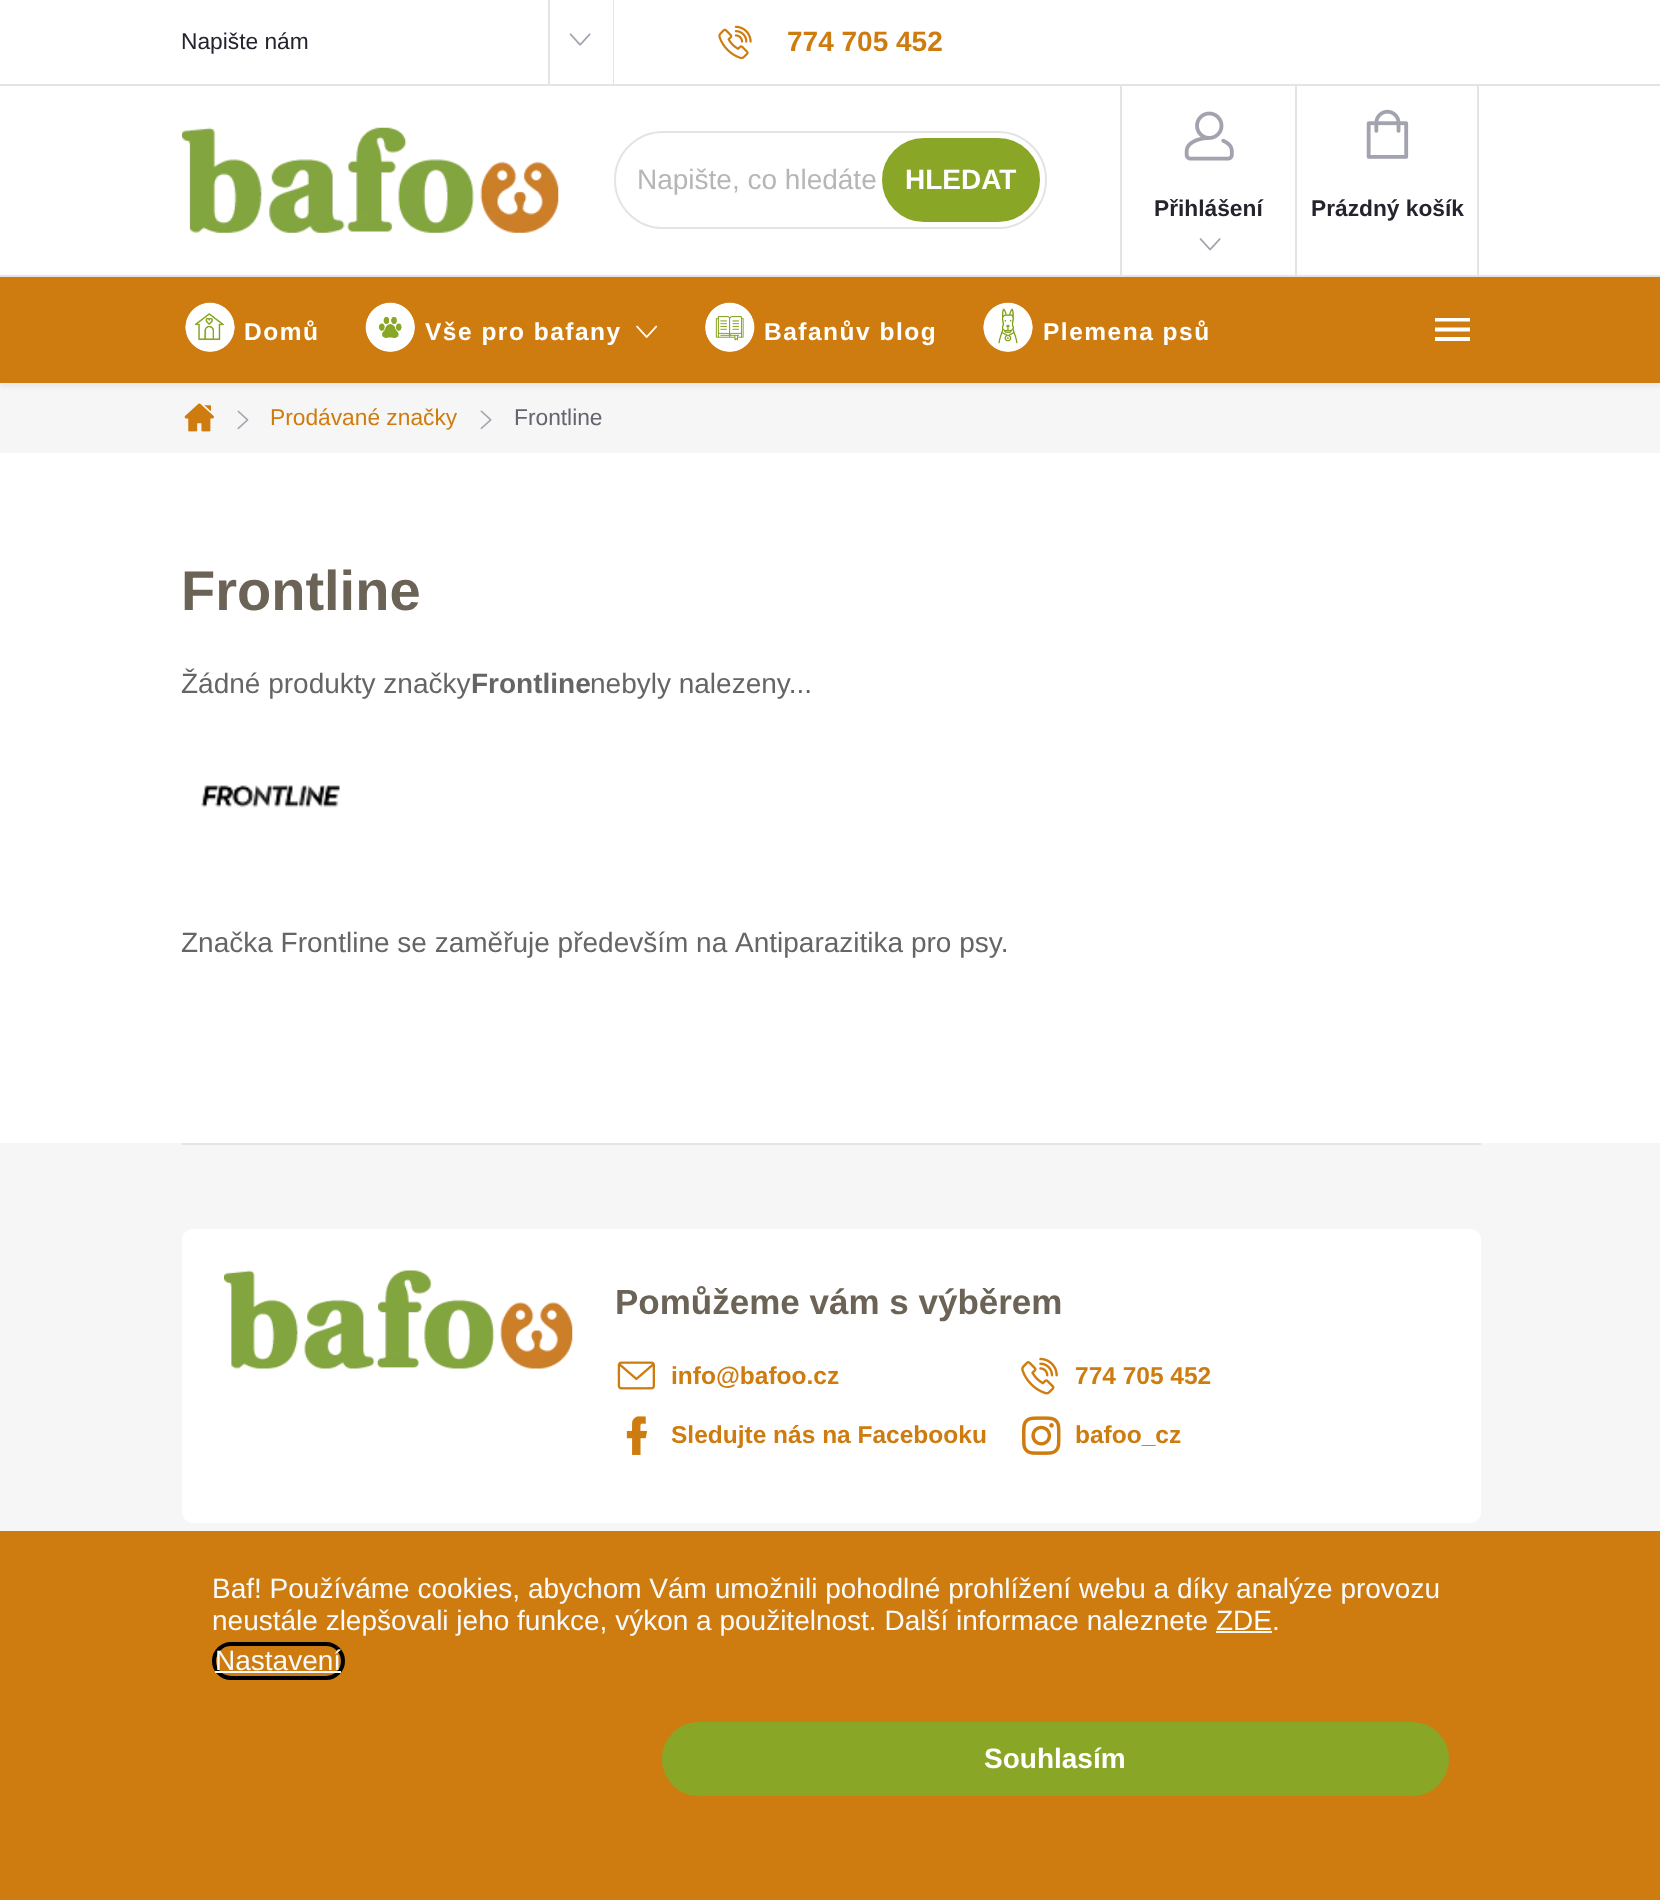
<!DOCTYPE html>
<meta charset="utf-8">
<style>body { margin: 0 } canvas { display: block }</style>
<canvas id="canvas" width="1660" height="1900"></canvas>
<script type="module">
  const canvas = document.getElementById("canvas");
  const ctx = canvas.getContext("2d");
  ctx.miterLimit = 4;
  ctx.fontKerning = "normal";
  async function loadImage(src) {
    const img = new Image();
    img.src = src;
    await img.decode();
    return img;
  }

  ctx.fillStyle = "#ffffff";
  ctx.fillRect(0, 0, 1660, 1900);
  ctx.fillStyle = "#e4e4e4";
  ctx.fillRect(0, 84, 1660, 2);
  ctx.font = "22.75px Arimo";
  ctx.fillStyle = "#24242e";
  ctx.fillText("Napište nám", 181, 49);
  ctx.fillStyle = "#e4e4e4";
  ctx.fillRect(613, 0, 1, 84);
  ctx.fillRect(548, 0, 2, 84);
  ctx.drawImage(await loadImage("img1.png"), 569, 33, 22, 13);
  ctx.drawImage(await loadImage("img2.png"), 718, 25, 34, 35);
  ctx.font = "bold 28px Arimo";
  ctx.fillStyle = "#ce7c10";
  ctx.fillText("774 705 452", 787, 51);
  ctx.drawImage(await loadImage("img3.png"), 182, 127, 377, 106);
  ctx.beginPath();
  ctx.roundRect(615, 132, 431, 96, 48);
  ctx.strokeStyle = "#e4e4e4";
  ctx.lineWidth = 2;
  ctx.stroke();
  ctx.font = "28px Arimo";
  ctx.fillStyle = "#b6b6b6";
  ctx.fillText("Napište, co hledáte", 637, 189);
  ctx.fillStyle = "#8aa627";
  ctx.beginPath();
  ctx.roundRect(883, 139, 156, 82, 41);
  ctx.fill();
  ctx.strokeStyle = "#8aa627";
  ctx.stroke();
  ctx.font = "bold 28px Arimo";
  ctx.fillStyle = "#ffffff";
  ctx.fillText("HLEDAT", 905, 189);
  ctx.fillStyle = "#e4e4e4";
  ctx.fillRect(1120, 86, 2, 189);
  ctx.drawImage(await loadImage("img4.png"), 1184, 111, 50, 50);
  ctx.font = "bold 22.75px Arimo";
  ctx.fillStyle = "#24242e";
  ctx.fillText("Přihlášení", 1154, 216);
  ctx.drawImage(await loadImage("img5.png"), 1199, 238, 22, 13);
  ctx.fillStyle = "#e4e4e4";
  ctx.fillRect(1477, 86, 2, 189);
  ctx.fillRect(1295, 86, 2, 189);
  ctx.drawImage(await loadImage("img6.png"), 1366, 109, 43, 50);
  ctx.fillStyle = "#24242e";
  ctx.fillText("Prázdný košík", 1311, 216);
  ctx.fillStyle = "#f6f6f6";
  ctx.fillRect(0, 383, 1660, 70);
  ctx.fillStyle = "rgba(0, 0, 0, 0.05)";
  ctx.filter = "blur(2px)";
  ctx.beginPath();
  ctx.rect(0, 278, 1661, 109);
  ctx.fill();
  ctx.filter = "none";
  ctx.fillStyle = "#ce7c10";
  ctx.fillRect(0, 277, 1660, 106);
  ctx.drawImage(await loadImage("img7.png"), 185, 302, 50, 50);
  ctx.letterSpacing = "1.5px";
  ctx.font = "bold 24.5px Arimo";
  ctx.fillStyle = "#ffffff";
  ctx.fillText("Domů", 244, 340);
  ctx.drawImage(await loadImage("img8.png"), 365, 302, 50, 50);
  ctx.fillText("Vše pro bafany", 425, 340);
  ctx.drawImage(await loadImage("img9.png"), 636, 325, 22, 13);
  ctx.drawImage(await loadImage("img10.png"), 705, 302, 50, 50);
  ctx.fillText("Bafanův blog", 764, 340);
  ctx.drawImage(await loadImage("img11.png"), 983, 302, 50, 50);
  ctx.fillText("Plemena psů", 1043, 340);
  ctx.beginPath();
  ctx.moveTo(1435, 341);
  ctx.lineTo(1470, 341);
  ctx.lineTo(1470, 337);
  ctx.lineTo(1435, 337);
  ctx.closePath();
  ctx.moveTo(1435, 331.5);
  ctx.lineTo(1470, 331.5);
  ctx.lineTo(1470, 327.5);
  ctx.lineTo(1435, 327.5);
  ctx.closePath();
  ctx.moveTo(1435, 318);
  ctx.lineTo(1435, 321.5);
  ctx.lineTo(1470, 321.5);
  ctx.lineTo(1470, 318);
  ctx.closePath();
  ctx.fill();
  ctx.fillStyle = "#e4e4e4";
  ctx.fillRect(0, 275, 1660, 2);
  ctx.drawImage(await loadImage("img12.png"), 184, 403, 30, 29);
  ctx.drawImage(await loadImage("img13.png"), 237, 410, 12, 20);
  ctx.letterSpacing = "0px";
  ctx.font = "22.75px Arimo";
  ctx.fillStyle = "#ce7c10";
  ctx.fillText("Prodávané značky", 270, 425);
  ctx.drawImage(await loadImage("img14.png"), 480, 410, 12, 20);
  ctx.fillStyle = "#656570";
  ctx.fillText("Frontline", 514, 425);
  ctx.font = "bold 56px Arimo";
  ctx.fillStyle = "#6c6357";
  ctx.fillText("Frontline", 181, 610);
  ctx.font = "28px Arimo";
  ctx.fillStyle = "#656565";
  ctx.fillText("Žádné produkty značky", 181, 693);
  ctx.font = "bold 28px Arimo";
  ctx.fillText("Frontline", 471, 693);
  ctx.font = "28px Arimo";
  ctx.fillText("nebyly nalezeny...", 590, 693);
  ctx.drawImage(await loadImage("img15.png"), 201, 785, 139, 23);
  ctx.fillText("Značka Frontline se zaměřuje především na Antiparazitika pro psy.", 181, 952);
  ctx.fillStyle = "#f6f6f6";
  ctx.fillRect(0, 1143, 1660, 388);
  ctx.fillStyle = "#e4e4e4";
  ctx.fillRect(182, 1143, 1299, 2);
  ctx.fillStyle = "#ffffff";
  ctx.beginPath();
  ctx.roundRect(182, 1229, 1299, 294, 11);
  ctx.fill();
  ctx.drawImage(await loadImage("img16.png"), 224, 1270, 349, 99);
  ctx.font = "bold 35px Arimo";
  ctx.fillStyle = "#6c6357";
  ctx.fillText("Pomůžeme vám s výběrem", 615, 1314);
  ctx.drawImage(await loadImage("img17.png"), 617, 1361, 38, 29);
  ctx.font = "bold 24.5px Arimo";
  ctx.fillStyle = "#ce7c10";
  ctx.fillText("info@bafoo.cz", 671, 1384);
  ctx.drawImage(await loadImage("img18.png"), 1021, 1357, 37, 38);
  ctx.fillText("774 705 452", 1075, 1384);
  ctx.drawImage(await loadImage("img19.png"), 626, 1416, 22, 39);
  ctx.fillText("Sledujte nás na Facebooku", 671, 1443);
  ctx.drawImage(await loadImage("img20.png"), 1022, 1416, 39, 39);
  ctx.fillText("bafoo_cz", 1075, 1443);
  ctx.fillRect(0, 1531, 1660, 369);
  ctx.font = "28px Arimo";
  ctx.fillStyle = "#f8fafb";
  ctx.fillText("Baf! Používáme cookies, abychom Vám umožnili pohodlné prohlížení webu a díky analýze provozu", 212, 1598);
  ctx.fillText("neustále zlepšovali jeho funkce, výkon a použitelnost. Další informace naleznete ZDE.", 212, 1630);
  ctx.fillRect(1216, 1631, 56, 2);
  ctx.beginPath();
  ctx.roundRect(214, 1644, 129, 34, 17);
  ctx.strokeStyle = "#000000";
  ctx.lineWidth = 4;
  ctx.stroke();
  ctx.fillText("Nastavení", 215, 1670);
  ctx.fillRect(215, 1671, 126, 2);
  ctx.fillStyle = "#8aa627";
  ctx.beginPath();
  ctx.roundRect(664, 1724, 783, 70, 35);
  ctx.fill();
  ctx.strokeStyle = "#8aa627";
  ctx.stroke();
  ctx.font = "bold 28px Arimo";
  ctx.fillStyle = "#ffffff";
  ctx.fillText("Souhlasím", 984, 1768);
</script>
